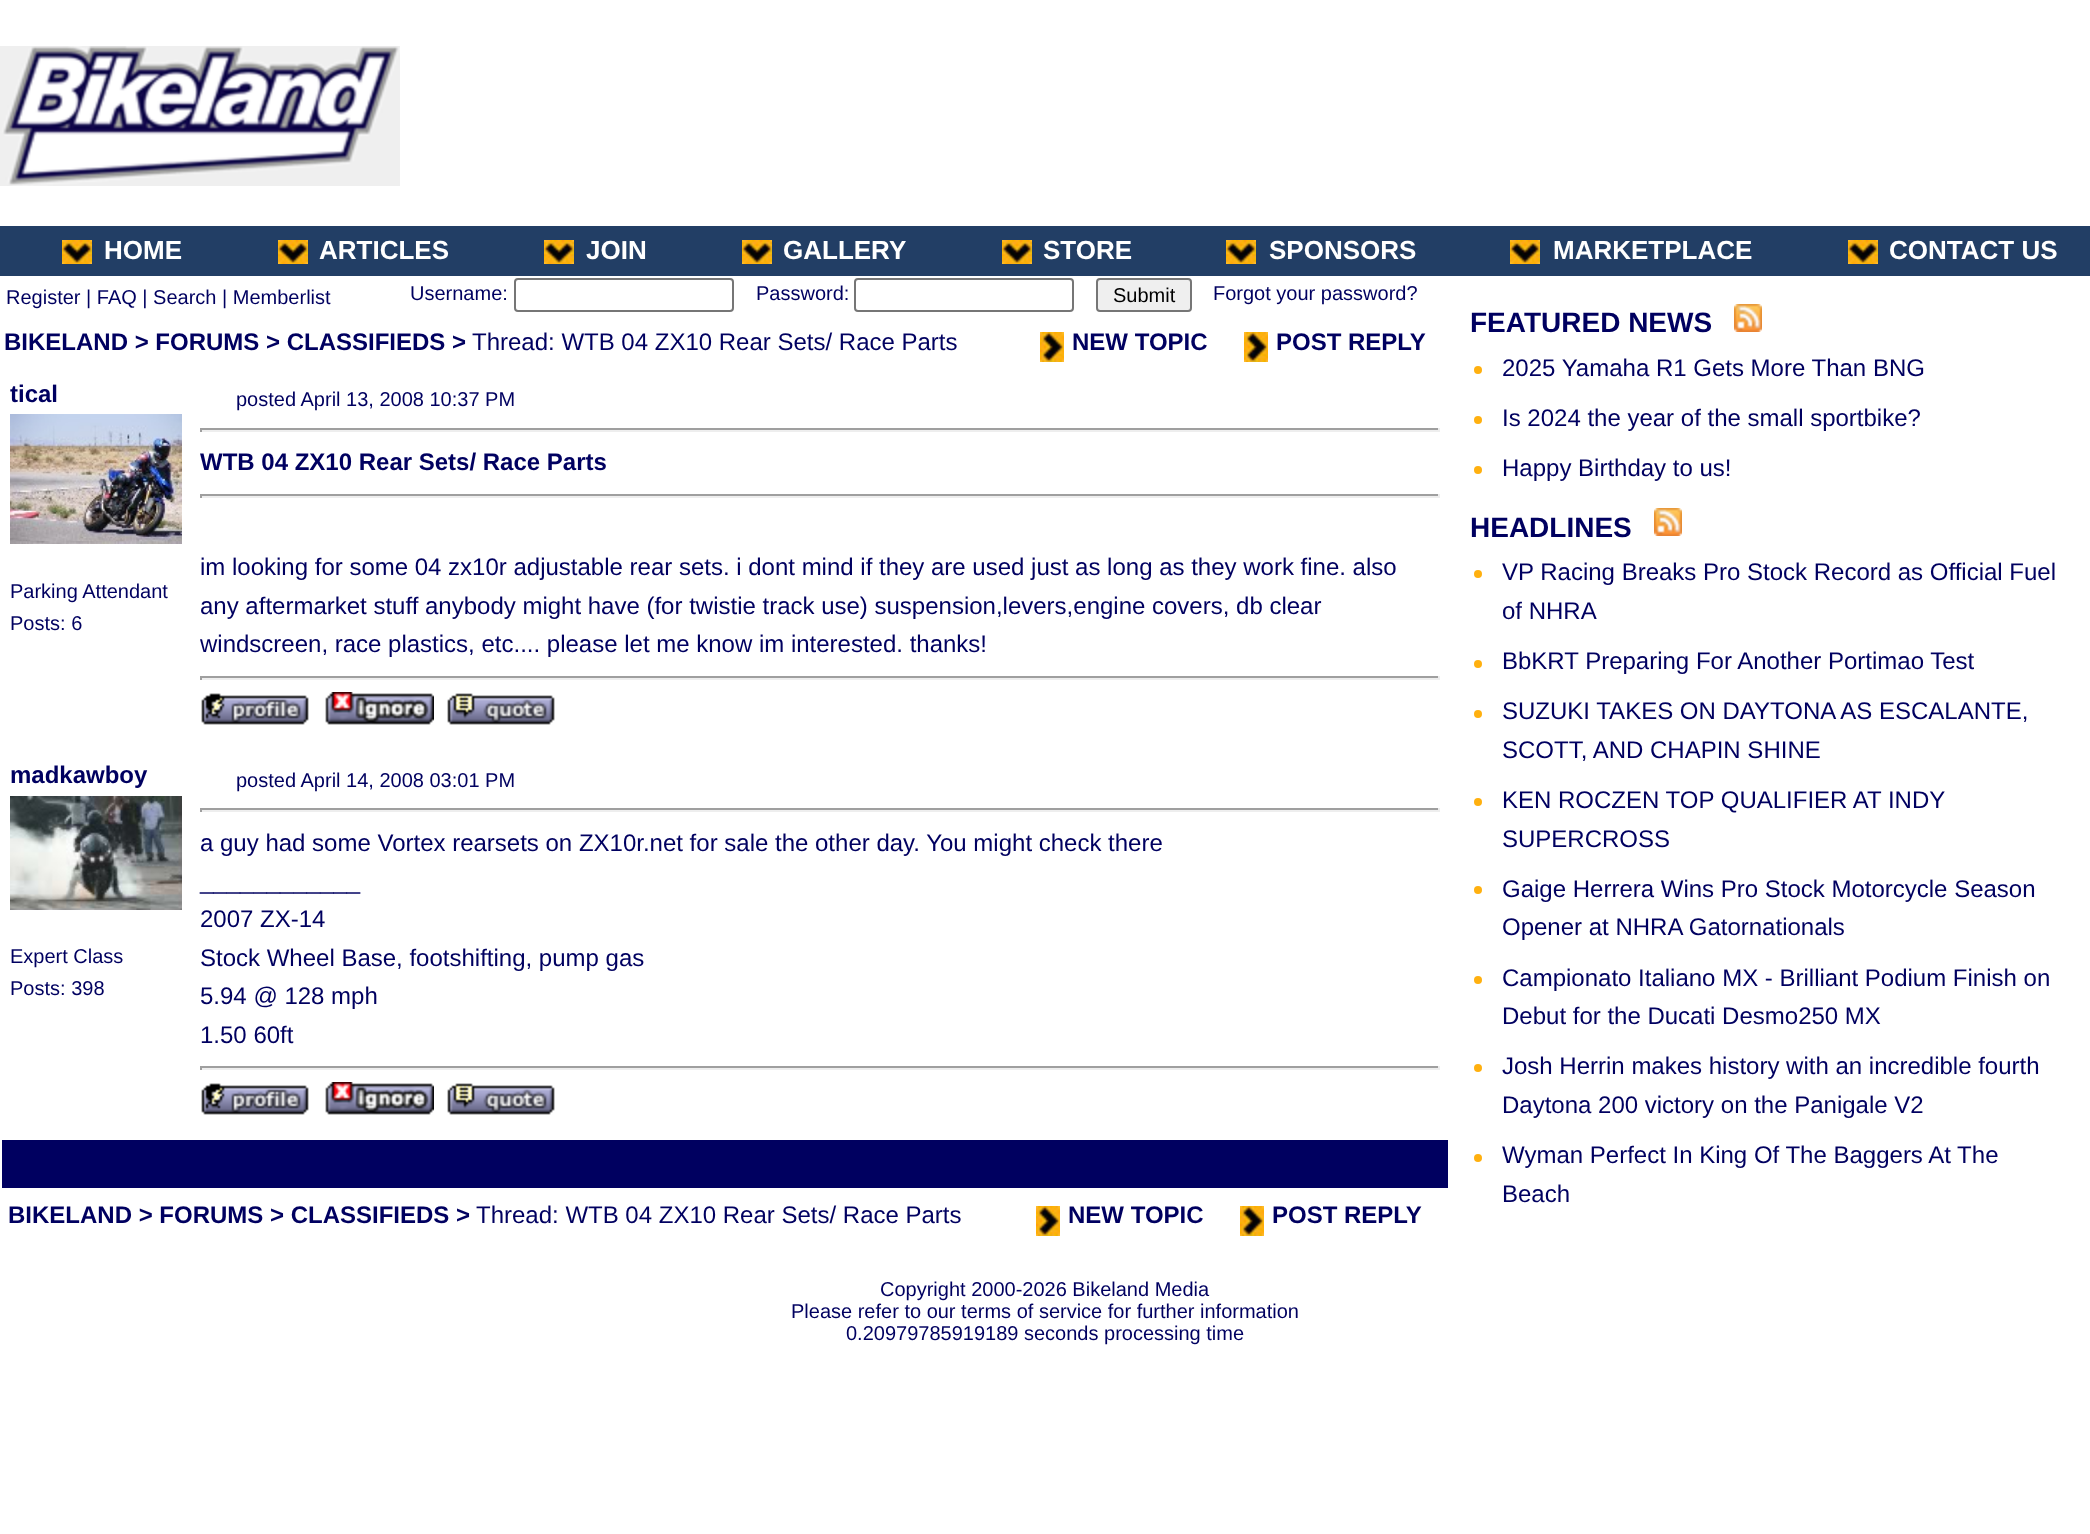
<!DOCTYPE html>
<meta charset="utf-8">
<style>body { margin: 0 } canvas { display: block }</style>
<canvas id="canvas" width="2090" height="1534"></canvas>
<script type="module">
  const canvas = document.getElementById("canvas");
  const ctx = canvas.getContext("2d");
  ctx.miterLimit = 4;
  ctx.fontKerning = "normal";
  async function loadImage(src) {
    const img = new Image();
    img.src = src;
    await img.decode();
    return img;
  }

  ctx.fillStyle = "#ffffff";
  ctx.fillRect(0, 0, 2090, 1534);
  ctx.drawImage(await loadImage("img1.png"), 0, 46, 400, 140);
  ctx.fillStyle = "#223e65";
  ctx.fillRect(0, 226, 2090, 50);
  ctx.drawImage(await loadImage("img2.png"), 62, 240, 30, 24);
  ctx.font = "bold 26px Liberation Sans";
  ctx.fillStyle = "#ffffff";
  ctx.fillText("HOME", 104, 259);
  ctx.drawImage(await loadImage("img2.png"), 278, 240, 30, 24);
  ctx.fillText("ARTICLES", 319, 259);
  ctx.drawImage(await loadImage("img2.png"), 544, 240, 30, 24);
  ctx.fillText("JOIN", 586, 259);
  ctx.drawImage(await loadImage("img2.png"), 742, 240, 30, 24);
  ctx.fillText("GALLERY", 783, 259);
  ctx.drawImage(await loadImage("img2.png"), 1002, 240, 30, 24);
  ctx.fillText("STORE", 1043, 259);
  ctx.drawImage(await loadImage("img2.png"), 1226, 240, 30, 24);
  ctx.fillText("SPONSORS", 1269, 259);
  ctx.drawImage(await loadImage("img2.png"), 1510, 240, 30, 24);
  ctx.fillText("MARKETPLACE", 1553, 259);
  ctx.drawImage(await loadImage("img2.png"), 1848, 240, 30, 24);
  ctx.fillText("CONTACT US", 1889, 259);
  ctx.font = "20px Liberation Sans";
  ctx.fillStyle = "#000060";
  ctx.fillText("Register | FAQ | Search | Memberlist", 6, 304);
  ctx.fillText("Username:", 410, 300);
  ctx.beginPath();
  ctx.roundRect(515, 279, 218, 32, 3);
  ctx.strokeStyle = "#767676";
  ctx.lineWidth = 2;
  ctx.stroke();
  ctx.fillText("Password:", 756, 300);
  ctx.beginPath();
  ctx.roundRect(855, 279, 218, 32, 3);
  ctx.stroke();
  ctx.fillStyle = "#efefef";
  ctx.beginPath();
  ctx.roundRect(1097, 279, 94, 32, 3);
  ctx.fill();
  ctx.stroke();
  ctx.fillStyle = "#000000";
  ctx.fillText("Submit", 1113, 302);
  ctx.fillStyle = "#000060";
  ctx.fillText("Forgot your password?", 1213, 300);
  ctx.font = "bold 24px Liberation Sans";
  ctx.fillText("BIKELAND > FORUMS > CLASSIFIEDS >", 4, 350);
  ctx.font = "24px Liberation Sans";
  ctx.fillText("Thread: WTB 04 ZX10 Rear Sets/ Race Parts", 472, 350);
  ctx.drawImage(await loadImage("img3.png"), 1040, 332, 24, 30);
  ctx.font = "bold 24px Liberation Sans";
  ctx.fillText("NEW TOPIC", 1072, 350);
  ctx.drawImage(await loadImage("img3.png"), 1244, 332, 24, 30);
  ctx.fillText("POST REPLY", 1276, 350);
  ctx.fillText("tical", 10, 402);
  ctx.drawImage(await loadImage("img4.png"), 10, 414, 172, 130);
  ctx.font = "20px Liberation Sans";
  ctx.fillText("Parking Attendant", 10, 598);
  ctx.fillText("Posts: 6", 10, 630);
  ctx.fillText("posted April 13, 2008 10:37 PM", 236, 406);
  ctx.fillStyle = "#9f9f9f";
  ctx.fillRect(200, 428, 1240, 2);
  ctx.fillStyle = "#eeeeee";
  ctx.fillRect(1438, 428, 2, 4);
  ctx.fillRect(200, 430, 1240, 2);
  ctx.fillStyle = "#9f9f9f";
  ctx.fillRect(200, 428, 2, 4);
  ctx.font = "bold 24px Liberation Sans";
  ctx.fillStyle = "#000060";
  ctx.fillText("WTB 04 ZX10 Rear Sets/ Race Parts", 200, 470);
  ctx.fillStyle = "#9f9f9f";
  ctx.fillRect(200, 494, 1240, 2);
  ctx.fillStyle = "#eeeeee";
  ctx.fillRect(1438, 494, 2, 4);
  ctx.fillRect(200, 496, 1240, 2);
  ctx.fillStyle = "#9f9f9f";
  ctx.fillRect(200, 494, 2, 4);
  ctx.font = "24px Liberation Sans";
  ctx.fillStyle = "#000060";
  ctx.fillText("im looking for some 04 zx10r adjustable rear sets. i dont mind if they are used just as long as they work fine. also", 200, 575);
  ctx.fillText("any aftermarket stuff anybody might have (for twistie track use) suspension,levers,engine covers, db clear", 200, 614);
  ctx.fillText("windscreen, race plastics, etc.... please let me know im interested. thanks!", 200, 652);
  ctx.fillStyle = "#9f9f9f";
  ctx.fillRect(200, 676, 1240, 2);
  ctx.fillStyle = "#eeeeee";
  ctx.fillRect(1438, 676, 2, 4);
  ctx.fillRect(200, 678, 1240, 2);
  ctx.fillStyle = "#9f9f9f";
  ctx.fillRect(200, 676, 2, 4);
  ctx.drawImage(await loadImage("img5.png"), 201, 693, 108, 32);
  ctx.drawImage(await loadImage("img6.png"), 325, 692, 109, 33);
  ctx.drawImage(await loadImage("img7.png"), 447, 693, 108, 32);
  ctx.font = "bold 24px Liberation Sans";
  ctx.fillStyle = "#000060";
  ctx.fillText("madkawboy", 10, 783);
  ctx.drawImage(await loadImage("img8.png"), 10, 796, 172, 114);
  ctx.font = "20px Liberation Sans";
  ctx.fillText("Expert Class", 10, 963);
  ctx.fillText("Posts: 398", 10, 995);
  ctx.fillText("posted April 14, 2008 03:01 PM", 236, 787);
  ctx.fillStyle = "#9f9f9f";
  ctx.fillRect(200, 808, 1240, 2);
  ctx.fillStyle = "#eeeeee";
  ctx.fillRect(1438, 808, 2, 4);
  ctx.fillRect(200, 810, 1240, 2);
  ctx.fillStyle = "#9f9f9f";
  ctx.fillRect(200, 808, 2, 4);
  ctx.font = "24px Liberation Sans";
  ctx.fillStyle = "#000060";
  ctx.fillText("a guy had some Vortex rearsets on ZX10r.net for sale the other day. You might check there", 200, 851);
  ctx.fillText("____________", 200, 889);
  ctx.fillText("2007 ZX-14", 200, 927);
  ctx.fillText("Stock Wheel Base, footshifting, pump gas", 200, 966);
  ctx.fillText("5.94 @ 128 mph", 200, 1004);
  ctx.fillText("1.50 60ft", 200, 1043);
  ctx.fillStyle = "#9f9f9f";
  ctx.fillRect(200, 1066, 1240, 2);
  ctx.fillStyle = "#eeeeee";
  ctx.fillRect(1438, 1066, 2, 4);
  ctx.fillRect(200, 1068, 1240, 2);
  ctx.fillStyle = "#9f9f9f";
  ctx.fillRect(200, 1066, 2, 4);
  ctx.drawImage(await loadImage("img5.png"), 201, 1083, 108, 32);
  ctx.drawImage(await loadImage("img6.png"), 325, 1082, 109, 33);
  ctx.drawImage(await loadImage("img7.png"), 447, 1083, 108, 32);
  ctx.fillStyle = "#000060";
  ctx.fillRect(2, 1140, 1446, 48);
  ctx.font = "bold 24px Liberation Sans";
  ctx.fillText("BIKELAND > FORUMS > CLASSIFIEDS >", 8, 1223);
  ctx.font = "24px Liberation Sans";
  ctx.fillText("Thread: WTB 04 ZX10 Rear Sets/ Race Parts", 476, 1223);
  ctx.drawImage(await loadImage("img3.png"), 1036, 1206, 24, 30);
  ctx.font = "bold 24px Liberation Sans";
  ctx.fillText("NEW TOPIC", 1068, 1223);
  ctx.drawImage(await loadImage("img3.png"), 1240, 1206, 24, 30);
  ctx.fillText("POST REPLY", 1272, 1223);
  ctx.font = "bold 28px Liberation Sans";
  ctx.fillText("FEATURED NEWS", 1470, 332);
  ctx.drawImage(await loadImage("img9.png"), 1734, 304, 28, 28);
  ctx.fillStyle = "#ffb00f";
  ctx.beginPath();
  ctx.arc(1478, 370, 4, 0, Math.PI * 2);
  ctx.fill();
  ctx.font = "24px Liberation Sans";
  ctx.fillStyle = "#000060";
  ctx.fillText("2025 Yamaha R1 Gets More Than BNG", 1502, 376);
  ctx.fillStyle = "#ffb00f";
  ctx.beginPath();
  ctx.arc(1478, 420, 4, 0, Math.PI * 2);
  ctx.fill();
  ctx.fillStyle = "#000060";
  ctx.fillText("Is 2024 the year of the small sportbike?", 1502, 426);
  ctx.fillStyle = "#ffb00f";
  ctx.beginPath();
  ctx.arc(1478, 470, 4, 0, Math.PI * 2);
  ctx.fill();
  ctx.fillStyle = "#000060";
  ctx.fillText("Happy Birthday to us!", 1502, 476);
  ctx.font = "bold 28px Liberation Sans";
  ctx.fillText("HEADLINES", 1470, 537);
  ctx.drawImage(await loadImage("img9.png"), 1654, 508, 28, 28);
  ctx.fillStyle = "#ffb00f";
  ctx.beginPath();
  ctx.arc(1478, 574, 4, 0, Math.PI * 2);
  ctx.fill();
  ctx.font = "24px Liberation Sans";
  ctx.fillStyle = "#000060";
  ctx.fillText("VP Racing Breaks Pro Stock Record as Official Fuel", 1502, 580);
  ctx.fillText("of NHRA", 1502, 619);
  ctx.fillStyle = "#ffb00f";
  ctx.beginPath();
  ctx.arc(1478, 664, 4, 0, Math.PI * 2);
  ctx.fill();
  ctx.fillStyle = "#000060";
  ctx.fillText("BbKRT Preparing For Another Portimao Test", 1502, 669);
  ctx.fillStyle = "#ffb00f";
  ctx.beginPath();
  ctx.arc(1478, 714, 4, 0, Math.PI * 2);
  ctx.fill();
  ctx.fillStyle = "#000060";
  ctx.fillText("SUZUKI TAKES ON DAYTONA AS ESCALANTE,", 1502, 719);
  ctx.fillText("SCOTT, AND CHAPIN SHINE", 1502, 758);
  ctx.fillStyle = "#ffb00f";
  ctx.beginPath();
  ctx.arc(1478, 802, 4, 0, Math.PI * 2);
  ctx.fill();
  ctx.fillStyle = "#000060";
  ctx.fillText("KEN ROCZEN TOP QUALIFIER AT INDY", 1502, 808);
  ctx.fillText("SUPERCROSS", 1502, 847);
  ctx.fillStyle = "#ffb00f";
  ctx.beginPath();
  ctx.arc(1478, 890, 4, 0, Math.PI * 2);
  ctx.fill();
  ctx.fillStyle = "#000060";
  ctx.fillText("Gaige Herrera Wins Pro Stock Motorcycle Season", 1502, 897);
  ctx.fillText("Opener at NHRA Gatornationals", 1502, 935);
  ctx.fillStyle = "#ffb00f";
  ctx.beginPath();
  ctx.arc(1478, 980, 4, 0, Math.PI * 2);
  ctx.fill();
  ctx.fillStyle = "#000060";
  ctx.fillText("Campionato Italiano MX - Brilliant Podium Finish on", 1502, 986);
  ctx.fillText("Debut for the Ducati Desmo250 MX", 1502, 1024);
  ctx.fillStyle = "#ffb00f";
  ctx.beginPath();
  ctx.arc(1478, 1068, 4, 0, Math.PI * 2);
  ctx.fill();
  ctx.fillStyle = "#000060";
  ctx.fillText("Josh Herrin makes history with an incredible fourth", 1502, 1074);
  ctx.fillText("Daytona 200 victory on the Panigale V2", 1502, 1113);
  ctx.fillStyle = "#ffb00f";
  ctx.beginPath();
  ctx.arc(1478, 1158, 4, 0, Math.PI * 2);
  ctx.fill();
  ctx.fillStyle = "#000060";
  ctx.fillText("Wyman Perfect In King Of The Baggers At The", 1502, 1163);
  ctx.fillText("Beach", 1502, 1202);
  ctx.font = "20px Liberation Sans";
  ctx.fillText("Copyright 2000-2026 Bikeland Media", 880, 1296);
  ctx.fillText("Please refer to our terms of service for further information", 791, 1318);
  ctx.fillText("0.20979785919189 seconds processing time", 846, 1340);
</script>
